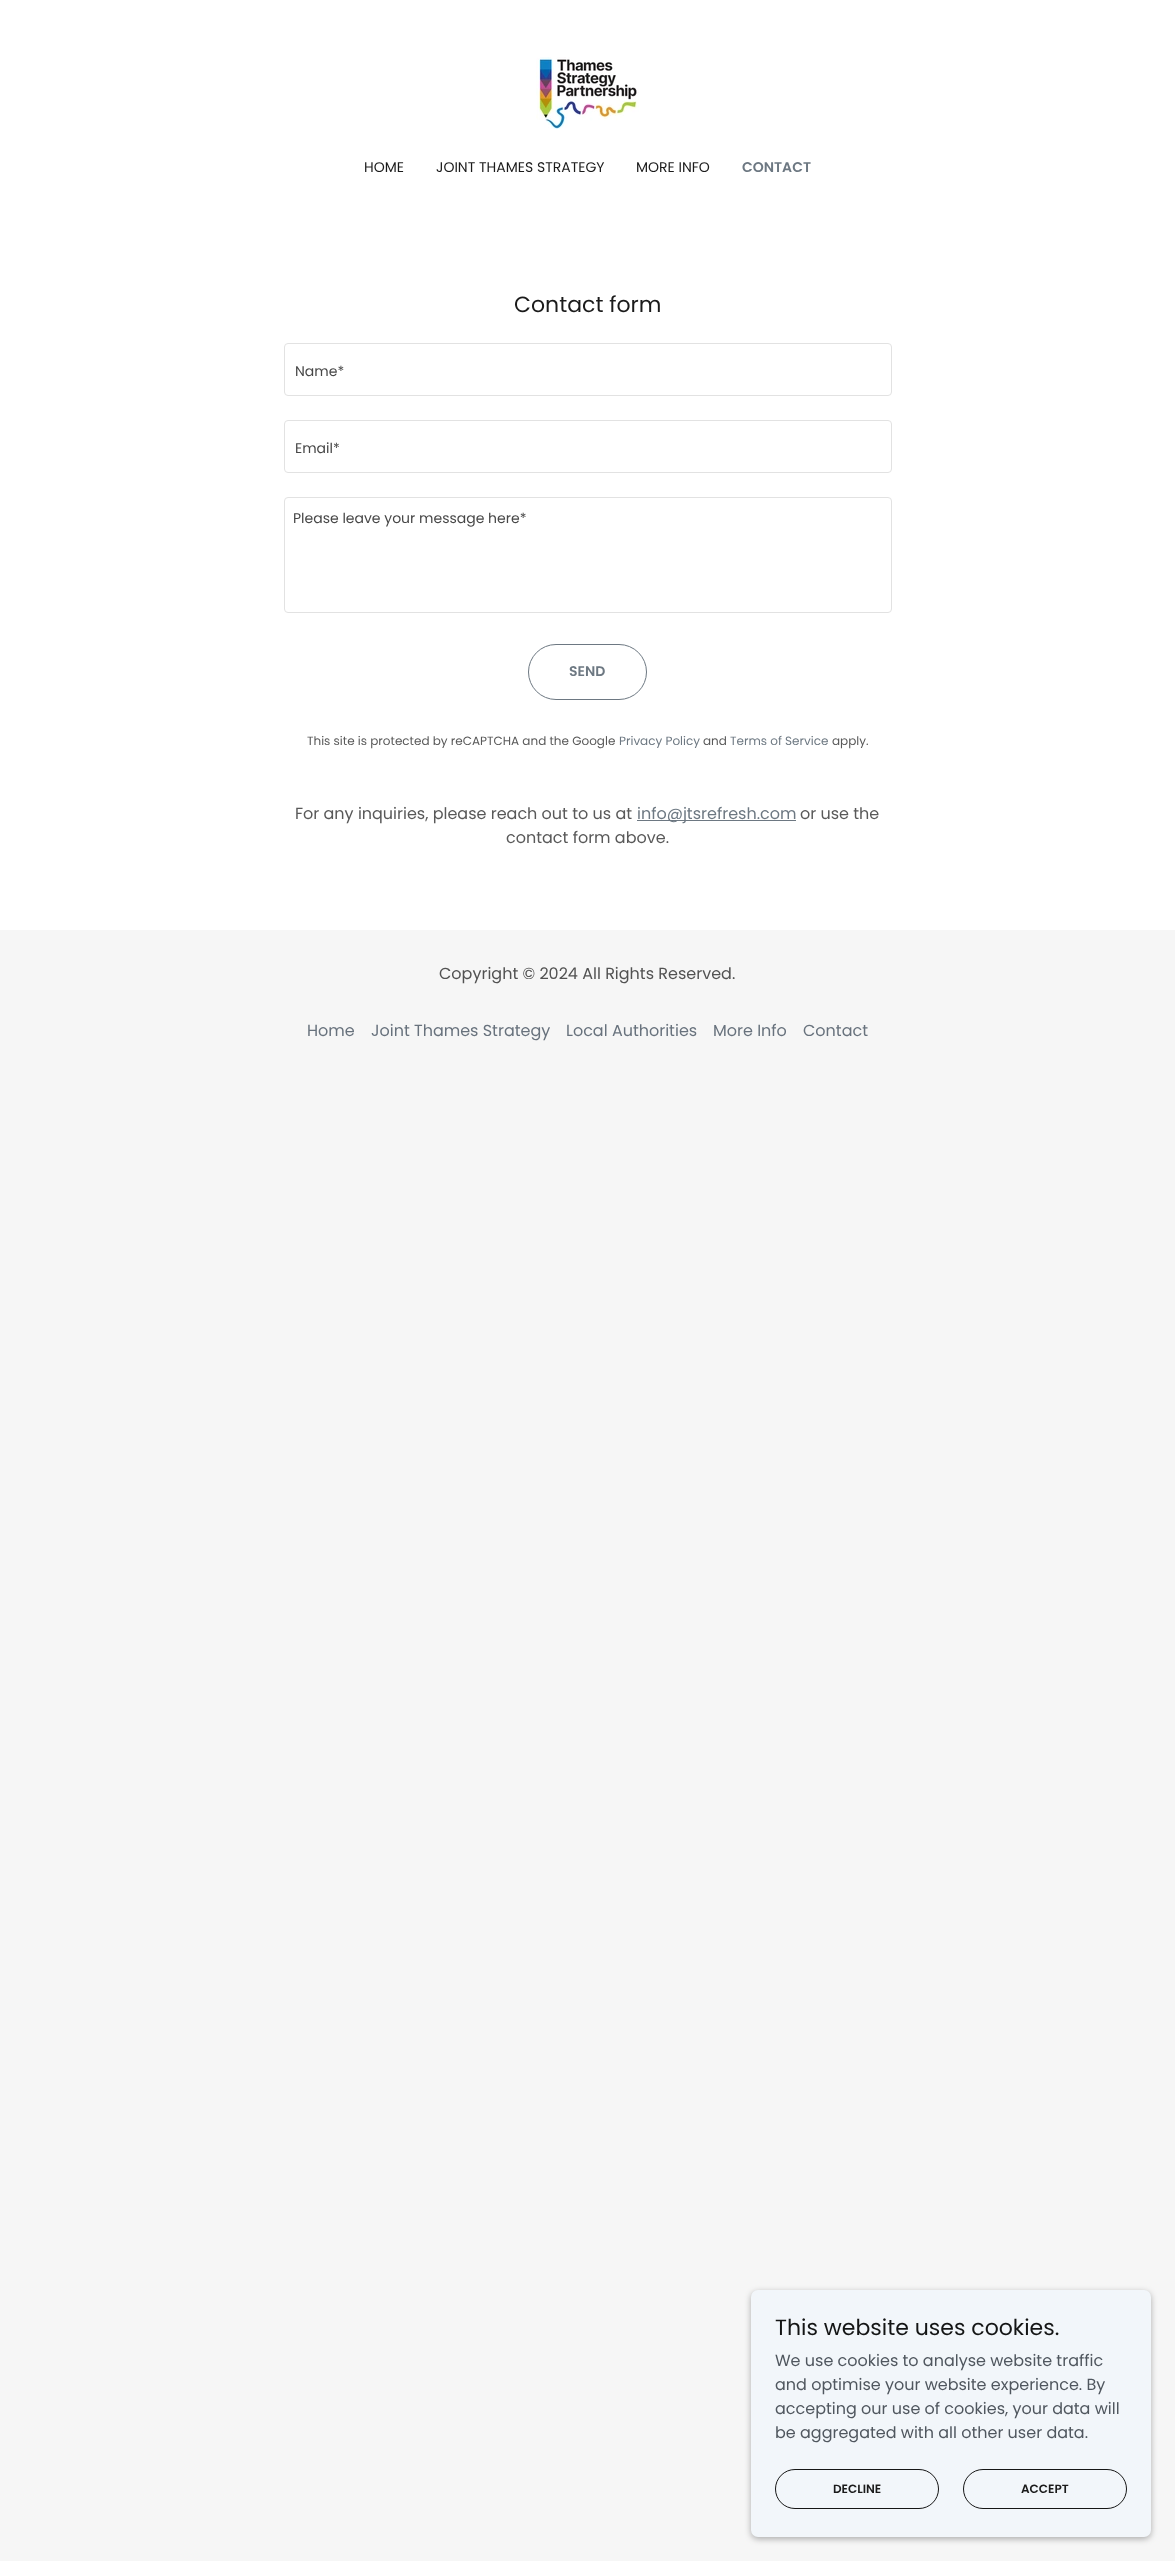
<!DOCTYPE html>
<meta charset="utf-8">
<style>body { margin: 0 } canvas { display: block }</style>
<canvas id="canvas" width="1175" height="2561"></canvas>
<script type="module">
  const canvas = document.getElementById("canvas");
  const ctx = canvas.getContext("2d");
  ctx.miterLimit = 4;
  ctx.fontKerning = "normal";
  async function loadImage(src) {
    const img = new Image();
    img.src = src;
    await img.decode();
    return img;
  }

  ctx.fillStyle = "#f6f6f6";
  ctx.fillRect(0, 0, 1175, 2561);
  ctx.fillStyle = "#ffffff";
  ctx.fillRect(0, 0, 1175, 930);
  ctx.drawImage(await loadImage("img1.png"), 536, 57, 103, 72);
  ctx.font = "14px Poppins";
  ctx.fillStyle = "#1b1b1b";
  ctx.fillText("HOME", 364, 172);
  ctx.fillText("JOINT THAMES STRATEGY", 436, 172);
  ctx.fillText("MORE INFO", 636, 172);
  ctx.font = "600 14px Poppins";
  ctx.fillStyle = "#6d7882";
  ctx.fillText("CONTACT", 742, 172);
  ctx.font = "22px Poppins";
  ctx.fillStyle = "#1b1b1b";
  ctx.fillText("Contact form", 514, 312);
  ctx.beginPath();
  ctx.roundRect(284.5, 343.5, 607, 52, 3.5);
  ctx.strokeStyle = "#e2e2e2";
  ctx.stroke();
  ctx.font = "14px Poppins";
  ctx.fillStyle = "#474747";
  ctx.fillText("Name*", 295, 376);
  ctx.beginPath();
  ctx.roundRect(284.5, 420.5, 607, 52, 3.5);
  ctx.stroke();
  ctx.fillText("Email*", 295, 453);
  ctx.beginPath();
  ctx.roundRect(284.5, 497.5, 607, 115, 3.5);
  ctx.stroke();
  ctx.fillText("Please leave your message here*", 293, 523);
  ctx.beginPath();
  ctx.roundRect(528.5, 644.5, 118, 55, 27.5);
  ctx.strokeStyle = "#6d7882";
  ctx.stroke();
  ctx.font = "600 14px Poppins";
  ctx.fillStyle = "#6d7882";
  ctx.fillText("SEND", 569, 676);
  ctx.font = "12px Poppins";
  ctx.fillStyle = "#595959";
  ctx.fillText("This site is protected by reCAPTCHA and the Google", 307, 745);
  ctx.fillStyle = "#6d7882";
  ctx.fillText("Privacy Policy", 619, 745);
  ctx.fillStyle = "#595959";
  ctx.fillText("and", 703, 745);
  ctx.fillStyle = "#6d7882";
  ctx.fillText("Terms of Service", 730, 745);
  ctx.fillStyle = "#595959";
  ctx.fillText("apply.", 832, 745);
  ctx.font = "16px Poppins";
  ctx.fillText("For any inquiries, please reach out to us at", 295, 819);
  ctx.fillStyle = "#6d7882";
  ctx.fillRect(637, 820, 159, 1);
  ctx.fillText("info@jtsrefresh.com", 637, 819);
  ctx.fillStyle = "#595959";
  ctx.fillText("or use the", 800, 819);
  ctx.fillText("contact form above.", 506, 843);
  ctx.fillStyle = "#525252";
  ctx.fillText("Copyright © 2024 All Rights Reserved.", 439, 979);
  ctx.fillStyle = "#68727d";
  ctx.fillText("Home", 307, 1036);
  ctx.fillText("Joint Thames Strategy", 371, 1036);
  ctx.fillText("Local Authorities", 566, 1036);
  ctx.fillText("More Info", 713, 1036);
  ctx.fillText("Contact", 803, 1036);
  ctx.fillStyle = "rgba(0, 0, 0, 0.3)";
  ctx.filter = "blur(3px)";
  ctx.beginPath();
  ctx.roundRect(751, 2292, 400, 247, 7);
  ctx.fill();
  ctx.filter = "none";
  ctx.fillStyle = "#f2f6fa";
  ctx.beginPath();
  ctx.roundRect(751, 2290, 400, 247, 7);
  ctx.fill();
  ctx.font = "22px Poppins";
  ctx.fillStyle = "#141515";
  ctx.fillText("This website uses cookies.", 775, 2335);
  ctx.font = "16px Poppins";
  ctx.fillStyle = "#50575f";
  ctx.fillText("We use cookies to analyse website traffic", 775, 2366);
  ctx.fillText("and optimise your website experience. By", 775, 2390);
  ctx.fillText("accepting our use of cookies, your data will", 775, 2414);
  ctx.fillText("be aggregated with all other user data.", 775, 2438);
  ctx.beginPath();
  ctx.roundRect(775.5, 2469.5, 163, 39, 19.5);
  ctx.strokeStyle = "#161616";
  ctx.stroke();
  ctx.font = "600 12px Poppins";
  ctx.fillStyle = "#1b1b1b";
  ctx.fillText("DECLINE", 833, 2493);
  ctx.beginPath();
  ctx.roundRect(963.5, 2469.5, 163, 39, 19.5);
  ctx.stroke();
  ctx.fillText("ACCEPT", 1021, 2493);
</script>
